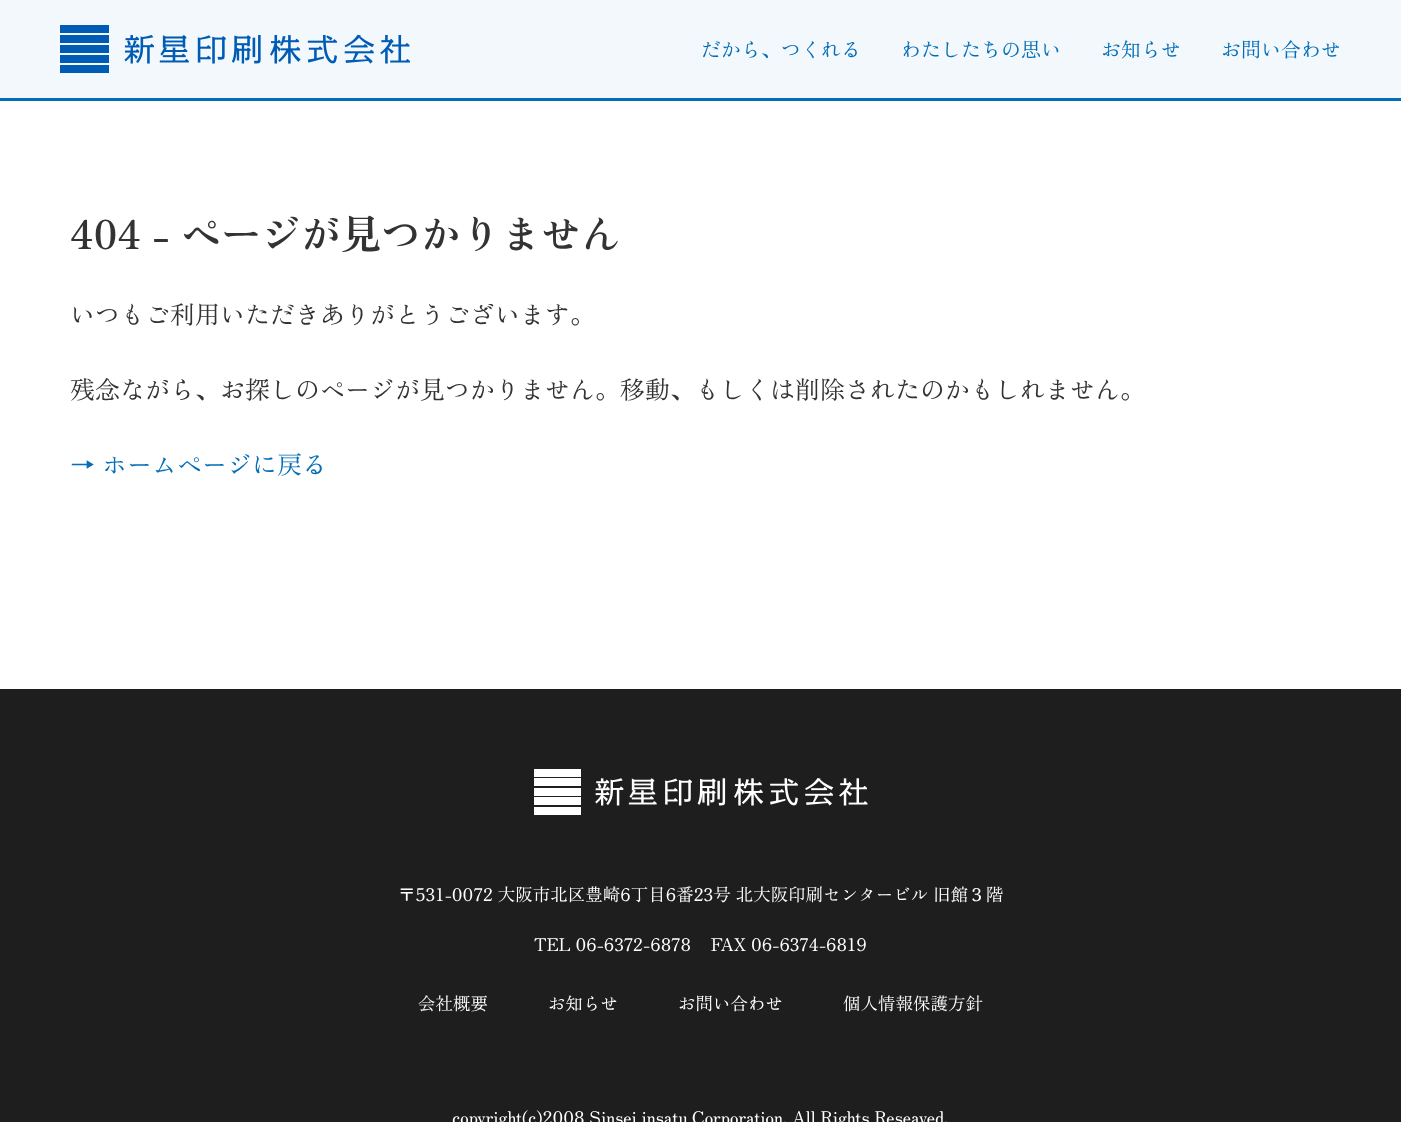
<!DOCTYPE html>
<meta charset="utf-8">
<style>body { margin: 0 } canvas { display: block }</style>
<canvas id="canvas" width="1401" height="1122"></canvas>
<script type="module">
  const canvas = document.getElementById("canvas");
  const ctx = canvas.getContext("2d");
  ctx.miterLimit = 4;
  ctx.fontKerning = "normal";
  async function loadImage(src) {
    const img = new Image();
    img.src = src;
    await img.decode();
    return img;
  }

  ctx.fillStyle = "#ffffff";
  ctx.fillRect(0, 0, 1401, 1122);
  ctx.fillStyle = "#f2f8fb";
  ctx.fillRect(0, 0, 1401, 98);
  ctx.fillStyle = "#036eb7";
  ctx.fillRect(0, 98, 1401, 3);
  ctx.drawImage(await loadImage("img1.png"), 60, 25, 350, 48);
  ctx.font = "20px Zen Old Mincho";
  ctx.fillText("だから、つくれる", 701, 57);
  ctx.fillText("わたしたちの思い", 901, 57);
  ctx.fillText("お知らせ", 1101, 57);
  ctx.fillText("お問い合わせ", 1221, 57);
  ctx.font = "bold 40px Zen Old Mincho";
  ctx.fillStyle = "#333333";
  ctx.fillText("404 - ページが見つかりません", 70, 249);
  ctx.font = "25px Zen Old Mincho";
  ctx.fillText("いつもご利用いただきありがとうございます。", 70, 324);
  ctx.fillText("残念ながら、お探しのページが見つかりません。移動、もしくは削除されたのかもしれません。", 70, 399);
  ctx.fillStyle = "#036eb7";
  ctx.fillText("→ ホームページに戻る", 70, 474);
  ctx.fillStyle = "#1e1e1e";
  ctx.fillRect(0, 689, 1401, 433);
  ctx.drawImage(await loadImage("img2.png"), 534, 769, 334, 46);
  ctx.font = "17.5px Zen Old Mincho";
  ctx.fillStyle = "#ffffff";
  ctx.fillText("〒531-0072 大阪市北区豊崎6丁目6番23号 北大阪印刷センタービル 旧館３階", 398, 901);
  ctx.fillText("TEL 06-6372-6878", 534, 951);
  ctx.fillText("FAX 06-6374-6819", 711, 951);
  ctx.fillText("会社概要", 418, 1010);
  ctx.fillText("お知らせ", 548, 1010);
  ctx.fillText("お問い合わせ", 678, 1010);
  ctx.fillText("個人情報保護方針", 843, 1010);
  ctx.fillText("copyright(c)2008 Sinsei insatu Corporation. All Rights Reseaved.", 452, 1124);
</script>
